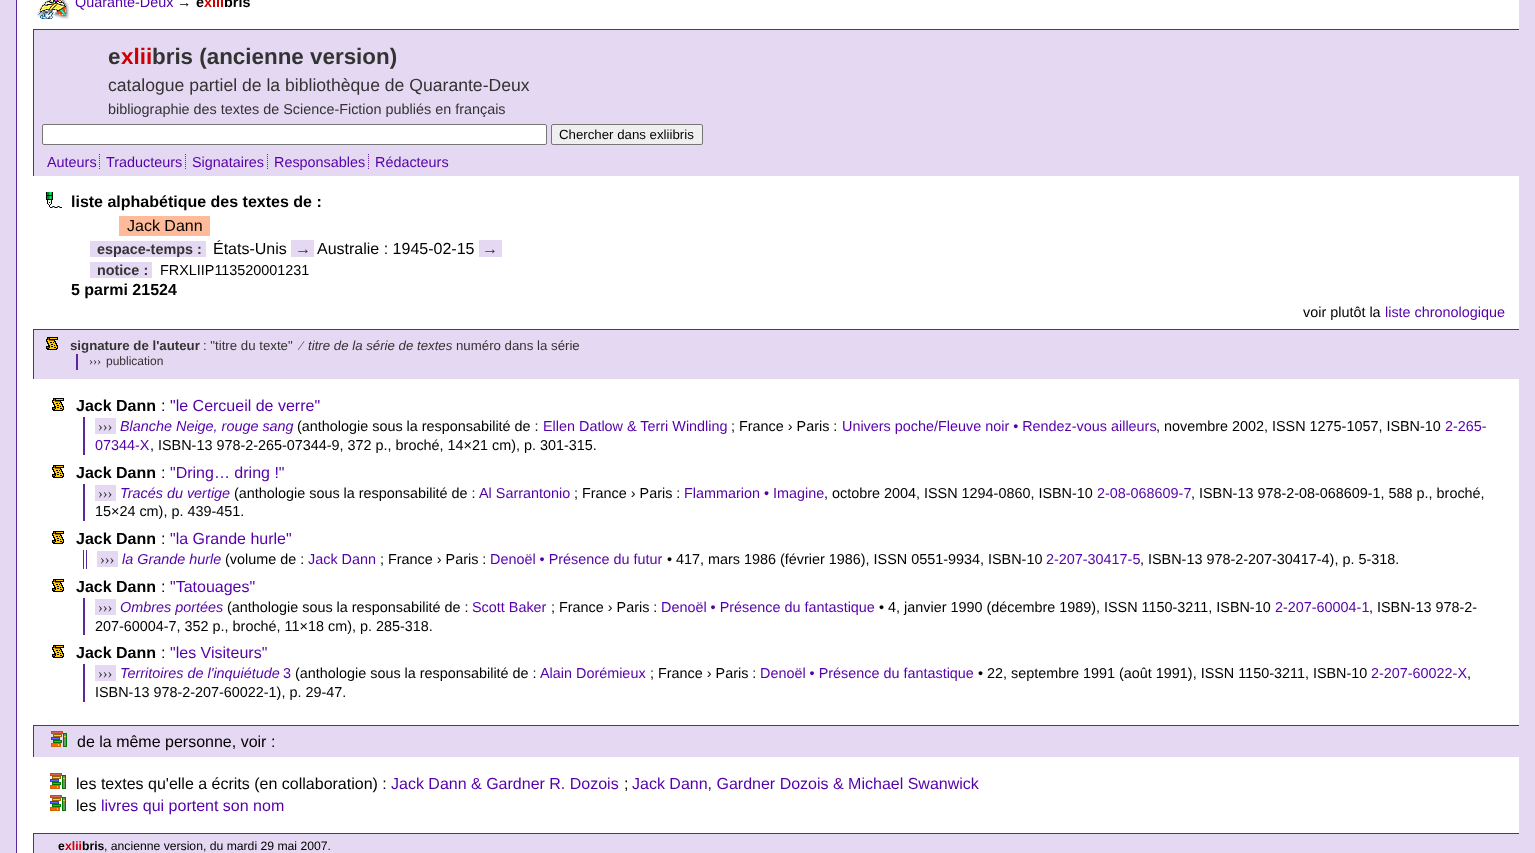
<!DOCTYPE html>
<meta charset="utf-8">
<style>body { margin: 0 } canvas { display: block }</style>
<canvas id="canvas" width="1535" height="853"></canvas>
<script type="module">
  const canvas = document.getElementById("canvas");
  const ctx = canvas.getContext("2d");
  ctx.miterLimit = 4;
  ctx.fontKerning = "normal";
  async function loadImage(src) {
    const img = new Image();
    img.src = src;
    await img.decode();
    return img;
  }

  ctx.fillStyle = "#e5d8f2";
  ctx.fillRect(0, 0, 1535, 853);
  ctx.fillStyle = "#ffffff";
  ctx.fillRect(17, 0, 1502, 853);
  ctx.fillStyle = "#5e2795";
  ctx.fillRect(16, 0, 1, 853);
  ctx.drawImage(await loadImage("img1.png"), 37, 0, 33, 19);
  ctx.font = "14.4px Liberation Sans";
  ctx.fillStyle = "#5500aa";
  ctx.fillText("Quarante-Deux", 75, 7);
  ctx.font = "14.4px Liberation Serif";
  ctx.fillStyle = "#000000";
  ctx.fillText("→", 177, 7);
  ctx.font = "bold 14.4px Liberation Sans";
  ctx.fillText("e", 196, 7);
  ctx.fillStyle = "#cc0000";
  ctx.fillText("xlii", 204, 7);
  ctx.fillStyle = "#000000";
  ctx.fillText("bris", 224, 7);
  ctx.fillStyle = "#e5d8f2";
  ctx.fillRect(34, 30, 1485, 146);
  ctx.fillStyle = "#5e2795";
  ctx.fillRect(33, 29, 1486, 1);
  ctx.fillRect(33, 29, 1, 147);
  ctx.font = "bold 22.4px Liberation Sans";
  ctx.fillStyle = "#333333";
  ctx.fillText("e", 108, 64);
  ctx.fillStyle = "#cc0000";
  ctx.fillText("xlii", 121, 64);
  ctx.fillStyle = "#333333";
  ctx.fillText("bris (ancienne version)", 152, 64);
  ctx.font = "17.6px Liberation Sans";
  ctx.fillText("catalogue partiel de la bibliothèque de Quarante-Deux", 108, 91);
  ctx.font = "14.4px Liberation Sans";
  ctx.fillText("bibliographie des textes de Science-Fiction publiés en français", 108, 114);
  ctx.fillStyle = "#ffffff";
  ctx.beginPath();
  ctx.roundRect(42.5, 124.5, 504, 20, 1.5);
  ctx.fill();
  ctx.strokeStyle = "#767676";
  ctx.stroke();
  ctx.fillStyle = "#efefef";
  ctx.beginPath();
  ctx.roundRect(551.5, 124.5, 151, 20, 1.5);
  ctx.fill();
  ctx.stroke();
  ctx.font = "13.25px Liberation Sans";
  ctx.fillStyle = "#000000";
  ctx.fillText("Chercher dans exliibris", 559, 139);
  ctx.font = "14.4px Liberation Sans";
  ctx.fillStyle = "#5500aa";
  ctx.fillText("Auteurs", 47, 167);
  ctx.fillText("Traducteurs", 106, 167);
  ctx.beginPath();
  ctx.moveTo(99.5, 154);
  ctx.lineTo(99.5, 170);
  ctx.strokeStyle = "#5e2795";
  ctx.setLineDash([1, 1]);
  ctx.stroke();
  ctx.fillText("Signataires", 192, 167);
  ctx.beginPath();
  ctx.moveTo(185.5, 154);
  ctx.lineTo(185.5, 170);
  ctx.stroke();
  ctx.fillText("Responsables", 274, 167);
  ctx.beginPath();
  ctx.moveTo(267.5, 154);
  ctx.lineTo(267.5, 170);
  ctx.stroke();
  ctx.fillText("Rédacteurs", 375, 167);
  ctx.beginPath();
  ctx.moveTo(368.5, 154);
  ctx.lineTo(368.5, 170);
  ctx.stroke();
  ctx.drawImage(await loadImage("img2.png"), 46, 192, 16, 16);
  ctx.font = "bold 16px Liberation Sans";
  ctx.fillStyle = "#000000";
  ctx.fillText("liste alphabétique des textes de :", 71, 207);
  ctx.fillStyle = "#ffbb99";
  ctx.fillRect(119, 216, 91, 20);
  ctx.font = "16px Liberation Sans";
  ctx.fillStyle = "#000000";
  ctx.fillText("Jack Dann", 127, 231);
  ctx.fillStyle = "#e5d8f2";
  ctx.fillRect(90, 241, 116, 16);
  ctx.font = "bold 14.4px Liberation Sans";
  ctx.fillStyle = "#333333";
  ctx.fillText("espace-temps :", 97, 254);
  ctx.font = "16px Liberation Sans";
  ctx.fillStyle = "#000000";
  ctx.fillText("États-Unis", 213, 254);
  ctx.fillStyle = "#e5d8f2";
  ctx.fillRect(291, 240, 23, 17);
  ctx.font = "16px Liberation Serif";
  ctx.fillStyle = "#333333";
  ctx.fillText("→", 295, 254);
  ctx.font = "16px Liberation Sans";
  ctx.fillStyle = "#000000";
  ctx.fillText("Australie : 1945-02-15", 317, 254);
  ctx.fillStyle = "#e5d8f2";
  ctx.fillRect(479, 240, 23, 17);
  ctx.font = "16px Liberation Serif";
  ctx.fillStyle = "#333333";
  ctx.fillText("→", 482, 254);
  ctx.fillStyle = "#e5d8f2";
  ctx.fillRect(90, 262, 62, 16);
  ctx.font = "bold 14.4px Liberation Sans";
  ctx.fillStyle = "#333333";
  ctx.fillText("notice :", 97, 275);
  ctx.font = "14.4px Liberation Sans";
  ctx.fillStyle = "#000000";
  ctx.fillText("FRXLIIP113520001231", 160, 275);
  ctx.font = "bold 16px Liberation Sans";
  ctx.fillText("5 parmi 21524", 71, 295);
  ctx.font = "14.4px Liberation Sans";
  ctx.fillText("voir plutôt la", 1303, 317);
  ctx.fillStyle = "#5500aa";
  ctx.fillText("liste chronologique", 1385, 317);
  ctx.fillStyle = "#e5d8f2";
  ctx.fillRect(34, 330, 1485, 49);
  ctx.fillStyle = "#5e2795";
  ctx.fillRect(33, 329, 1486, 1);
  ctx.fillRect(33, 329, 1, 50);
  ctx.drawImage(await loadImage("img3.png"), 46, 337, 12, 13);
  ctx.font = "bold 13.25px Liberation Sans";
  ctx.fillStyle = "#333333";
  ctx.fillText("signature de l'auteur", 70, 350);
  ctx.font = "13.25px Liberation Sans";
  ctx.fillText(": \"titre du texte\"", 203, 350);
  ctx.font = "13.25px Liberation Serif";
  ctx.fillText("⁄", 300, 350);
  ctx.font = "italic 13.25px Liberation Sans";
  ctx.fillText("titre de la série de textes", 308, 350);
  ctx.font = "13.25px Liberation Sans";
  ctx.fillText("numéro dans la série", 456, 350);
  ctx.fillStyle = "#5e2795";
  ctx.fillRect(76, 354, 2, 16);
  ctx.font = "12px Liberation Serif";
  ctx.fillStyle = "#333333";
  ctx.fillText("›››", 89, 365);
  ctx.font = "12px Liberation Sans";
  ctx.fillText("publication", 106, 365);
  ctx.drawImage(await loadImage("img4.png"), 52, 398, 12, 13);
  ctx.font = "bold 16px Liberation Sans";
  ctx.fillStyle = "#000000";
  ctx.fillText("Jack Dann", 76, 411);
  ctx.font = "16px Liberation Sans";
  ctx.fillText(":", 161, 411);
  ctx.fillStyle = "#5500aa";
  ctx.fillText("\"le Cercueil de verre\"", 170, 411);
  ctx.fillStyle = "#5e2795";
  ctx.fillRect(83, 417, 2, 38);
  ctx.fillStyle = "#e5d8f2";
  ctx.fillRect(95, 418, 21, 16);
  ctx.font = "14.4px Liberation Serif";
  ctx.fillStyle = "#333333";
  ctx.fillText("›››", 98, 431);
  ctx.font = "italic 14.4px Liberation Sans";
  ctx.fillStyle = "#5500aa";
  ctx.fillText("Blanche Neige, rouge sang", 120, 431);
  ctx.font = "14.4px Liberation Sans";
  ctx.fillStyle = "#000000";
  ctx.fillText("(anthologie sous la responsabilité de :", 297, 431);
  ctx.fillStyle = "#5500aa";
  ctx.fillText("Ellen Datlow & Terri Windling", 543, 431);
  ctx.fillStyle = "#000000";
  ctx.fillText("; France › Paris :", 731, 431);
  ctx.fillStyle = "#5500aa";
  ctx.fillText("Univers poche/Fleuve noir • Rendez-vous ailleurs", 842, 431);
  ctx.fillStyle = "#000000";
  ctx.fillText(", novembre 2002, ISSN 1275-1057, ISBN-10", 1156, 431);
  ctx.fillStyle = "#5500aa";
  ctx.fillText("2-265-", 1445, 431);
  ctx.fillText("07344-X", 95, 450);
  ctx.fillStyle = "#000000";
  ctx.fillText(", ISBN-13 978-2-265-07344-9, 372 p., broché, 14×21 cm), p. 301-315.", 150, 450);
  ctx.drawImage(await loadImage("img4.png"), 52, 465, 12, 13);
  ctx.font = "bold 16px Liberation Sans";
  ctx.fillText("Jack Dann", 76, 478);
  ctx.font = "16px Liberation Sans";
  ctx.fillText(":", 161, 478);
  ctx.fillStyle = "#5500aa";
  ctx.fillText("\"Dring… dring !\"", 170, 478);
  ctx.fillStyle = "#5e2795";
  ctx.fillRect(83, 484, 2, 37);
  ctx.fillStyle = "#e5d8f2";
  ctx.fillRect(95, 485, 21, 16);
  ctx.font = "14.4px Liberation Serif";
  ctx.fillStyle = "#333333";
  ctx.fillText("›››", 98, 498);
  ctx.font = "italic 14.4px Liberation Sans";
  ctx.fillStyle = "#5500aa";
  ctx.fillText("Tracés du vertige", 120, 498);
  ctx.font = "14.4px Liberation Sans";
  ctx.fillStyle = "#000000";
  ctx.fillText("(anthologie sous la responsabilité de :", 234, 498);
  ctx.fillStyle = "#5500aa";
  ctx.fillText("Al Sarrantonio", 479, 498);
  ctx.fillStyle = "#000000";
  ctx.fillText("; France › Paris :", 574, 498);
  ctx.fillStyle = "#5500aa";
  ctx.fillText("Flammarion • Imagine", 684, 498);
  ctx.fillStyle = "#000000";
  ctx.fillText(", octobre 2004, ISSN 1294-0860, ISBN-10", 824, 498);
  ctx.fillStyle = "#5500aa";
  ctx.fillText("2-08-068609-7", 1097, 498);
  ctx.fillStyle = "#000000";
  ctx.fillText(", ISBN-13 978-2-08-068609-1, 588 p., broché,", 1191, 498);
  ctx.fillText("15×24 cm), p. 439-451.", 95, 516);
  ctx.drawImage(await loadImage("img4.png"), 52, 531, 12, 13);
  ctx.font = "bold 16px Liberation Sans";
  ctx.fillText("Jack Dann", 76, 544);
  ctx.font = "16px Liberation Sans";
  ctx.fillText(":", 161, 544);
  ctx.fillStyle = "#5500aa";
  ctx.fillText("\"la Grande hurle\"", 170, 544);
  ctx.fillStyle = "#5e2795";
  ctx.fillRect(83, 550, 1, 19);
  ctx.fillRect(86, 550, 1, 19);
  ctx.fillStyle = "#e5d8f2";
  ctx.fillRect(97, 551, 21, 16);
  ctx.font = "14.4px Liberation Serif";
  ctx.fillStyle = "#333333";
  ctx.fillText("›››", 100, 564);
  ctx.font = "italic 14.4px Liberation Sans";
  ctx.fillStyle = "#5500aa";
  ctx.fillText("la Grande hurle", 122, 564);
  ctx.font = "14.4px Liberation Sans";
  ctx.fillStyle = "#000000";
  ctx.fillText("(volume de :", 225, 564);
  ctx.fillStyle = "#5500aa";
  ctx.fillText("Jack Dann", 308, 564);
  ctx.fillStyle = "#000000";
  ctx.fillText("; France › Paris :", 380, 564);
  ctx.fillStyle = "#5500aa";
  ctx.fillText("Denoël • Présence du futur", 490, 564);
  ctx.fillStyle = "#000000";
  ctx.fillText("• 417, mars 1986 (février 1986), ISSN 0551-9934, ISBN-10", 667, 564);
  ctx.fillStyle = "#5500aa";
  ctx.fillText("2-207-30417-5", 1046, 564);
  ctx.fillStyle = "#000000";
  ctx.fillText(", ISBN-13 978-2-207-30417-4), p. 5-318.", 1140, 564);
  ctx.drawImage(await loadImage("img4.png"), 52, 579, 12, 13);
  ctx.font = "bold 16px Liberation Sans";
  ctx.fillText("Jack Dann", 76, 592);
  ctx.font = "16px Liberation Sans";
  ctx.fillText(":", 161, 592);
  ctx.fillStyle = "#5500aa";
  ctx.fillText("\"Tatouages\"", 170, 592);
  ctx.fillStyle = "#5e2795";
  ctx.fillRect(83, 598, 2, 37);
  ctx.fillStyle = "#e5d8f2";
  ctx.fillRect(95, 599, 21, 16);
  ctx.font = "14.4px Liberation Serif";
  ctx.fillStyle = "#333333";
  ctx.fillText("›››", 98, 612);
  ctx.font = "italic 14.4px Liberation Sans";
  ctx.fillStyle = "#5500aa";
  ctx.fillText("Ombres portées", 120, 612);
  ctx.font = "14.4px Liberation Sans";
  ctx.fillStyle = "#000000";
  ctx.fillText("(anthologie sous la responsabilité de :", 227, 612);
  ctx.fillStyle = "#5500aa";
  ctx.fillText("Scott Baker", 472, 612);
  ctx.fillStyle = "#000000";
  ctx.fillText("; France › Paris :", 551, 612);
  ctx.fillStyle = "#5500aa";
  ctx.fillText("Denoël • Présence du fantastique", 661, 612);
  ctx.fillStyle = "#000000";
  ctx.fillText("• 4, janvier 1990 (décembre 1989), ISSN 1150-3211, ISBN-10", 879, 612);
  ctx.fillStyle = "#5500aa";
  ctx.fillText("2-207-60004-1", 1275, 612);
  ctx.fillStyle = "#000000";
  ctx.fillText(", ISBN-13 978-2-", 1369, 612);
  ctx.fillText("207-60004-7, 352 p., broché, 11×18 cm), p. 285-318.", 95, 631);
  ctx.drawImage(await loadImage("img4.png"), 52, 645, 12, 13);
  ctx.font = "bold 16px Liberation Sans";
  ctx.fillText("Jack Dann", 76, 658);
  ctx.font = "16px Liberation Sans";
  ctx.fillText(":", 161, 658);
  ctx.fillStyle = "#5500aa";
  ctx.fillText("\"les Visiteurs\"", 170, 658);
  ctx.fillStyle = "#5e2795";
  ctx.fillRect(83, 664, 2, 38);
  ctx.fillStyle = "#e5d8f2";
  ctx.fillRect(95, 665, 21, 16);
  ctx.font = "14.4px Liberation Serif";
  ctx.fillStyle = "#333333";
  ctx.fillText("›››", 98, 678);
  ctx.font = "italic 14.4px Liberation Sans";
  ctx.fillStyle = "#5500aa";
  ctx.fillText("Territoires de l'inquiétude", 120, 678);
  ctx.font = "14.4px Liberation Sans";
  ctx.fillText("3", 283, 678);
  ctx.fillStyle = "#000000";
  ctx.fillText("(anthologie sous la responsabilité de :", 295, 678);
  ctx.fillStyle = "#5500aa";
  ctx.fillText("Alain Dorémieux", 540, 678);
  ctx.fillStyle = "#000000";
  ctx.fillText("; France › Paris :", 650, 678);
  ctx.fillStyle = "#5500aa";
  ctx.fillText("Denoël • Présence du fantastique", 760, 678);
  ctx.fillStyle = "#000000";
  ctx.fillText("• 22, septembre 1991 (août 1991), ISSN 1150-3211, ISBN-10", 978, 678);
  ctx.fillStyle = "#5500aa";
  ctx.fillText("2-207-60022-X", 1371, 678);
  ctx.fillStyle = "#000000";
  ctx.fillText(",", 1467, 678);
  ctx.fillText("ISBN-13 978-2-207-60022-1), p. 29-47.", 95, 697);
  ctx.fillStyle = "#e5d8f2";
  ctx.fillRect(34, 726, 1485, 31);
  ctx.fillStyle = "#5e2795";
  ctx.fillRect(33, 725, 1486, 1);
  ctx.fillRect(33, 725, 1, 32);
  ctx.drawImage(await loadImage("img5.png"), 51, 731, 16, 16);
  ctx.font = "16px Liberation Sans";
  ctx.fillStyle = "#000000";
  ctx.fillText("de la même personne, voir :", 77, 747);
  ctx.drawImage(await loadImage("img6.png"), 50, 773, 16, 16);
  ctx.fillText("les textes qu'elle a écrits (en collaboration) :", 76, 789);
  ctx.fillStyle = "#5500aa";
  ctx.fillText("Jack Dann & Gardner R. Dozois", 391, 789);
  ctx.fillStyle = "#000000";
  ctx.fillText(";", 624, 789);
  ctx.fillStyle = "#5500aa";
  ctx.fillText("Jack Dann, Gardner Dozois & Michael Swanwick", 632, 789);
  ctx.drawImage(await loadImage("img6.png"), 50, 795, 16, 16);
  ctx.fillStyle = "#000000";
  ctx.fillText("les", 76, 811);
  ctx.fillStyle = "#5500aa";
  ctx.fillText("livres qui portent son nom", 101, 811);
  ctx.fillStyle = "#e5d8f2";
  ctx.fillRect(34, 834, 1485, 19);
  ctx.fillStyle = "#5e2795";
  ctx.fillRect(33, 833, 1486, 1);
  ctx.fillRect(33, 833, 1, 20);
  ctx.font = "bold 12.2px Liberation Sans";
  ctx.fillStyle = "#000000";
  ctx.fillText("e", 58, 850);
  ctx.fillStyle = "#cc0000";
  ctx.fillText("xlii", 65, 850);
  ctx.fillStyle = "#000000";
  ctx.fillText("bris", 82, 850);
  ctx.font = "12.2px Liberation Sans";
  ctx.fillText(", ancienne version, du mardi 29 mai 2007.", 104, 850);
</script>
